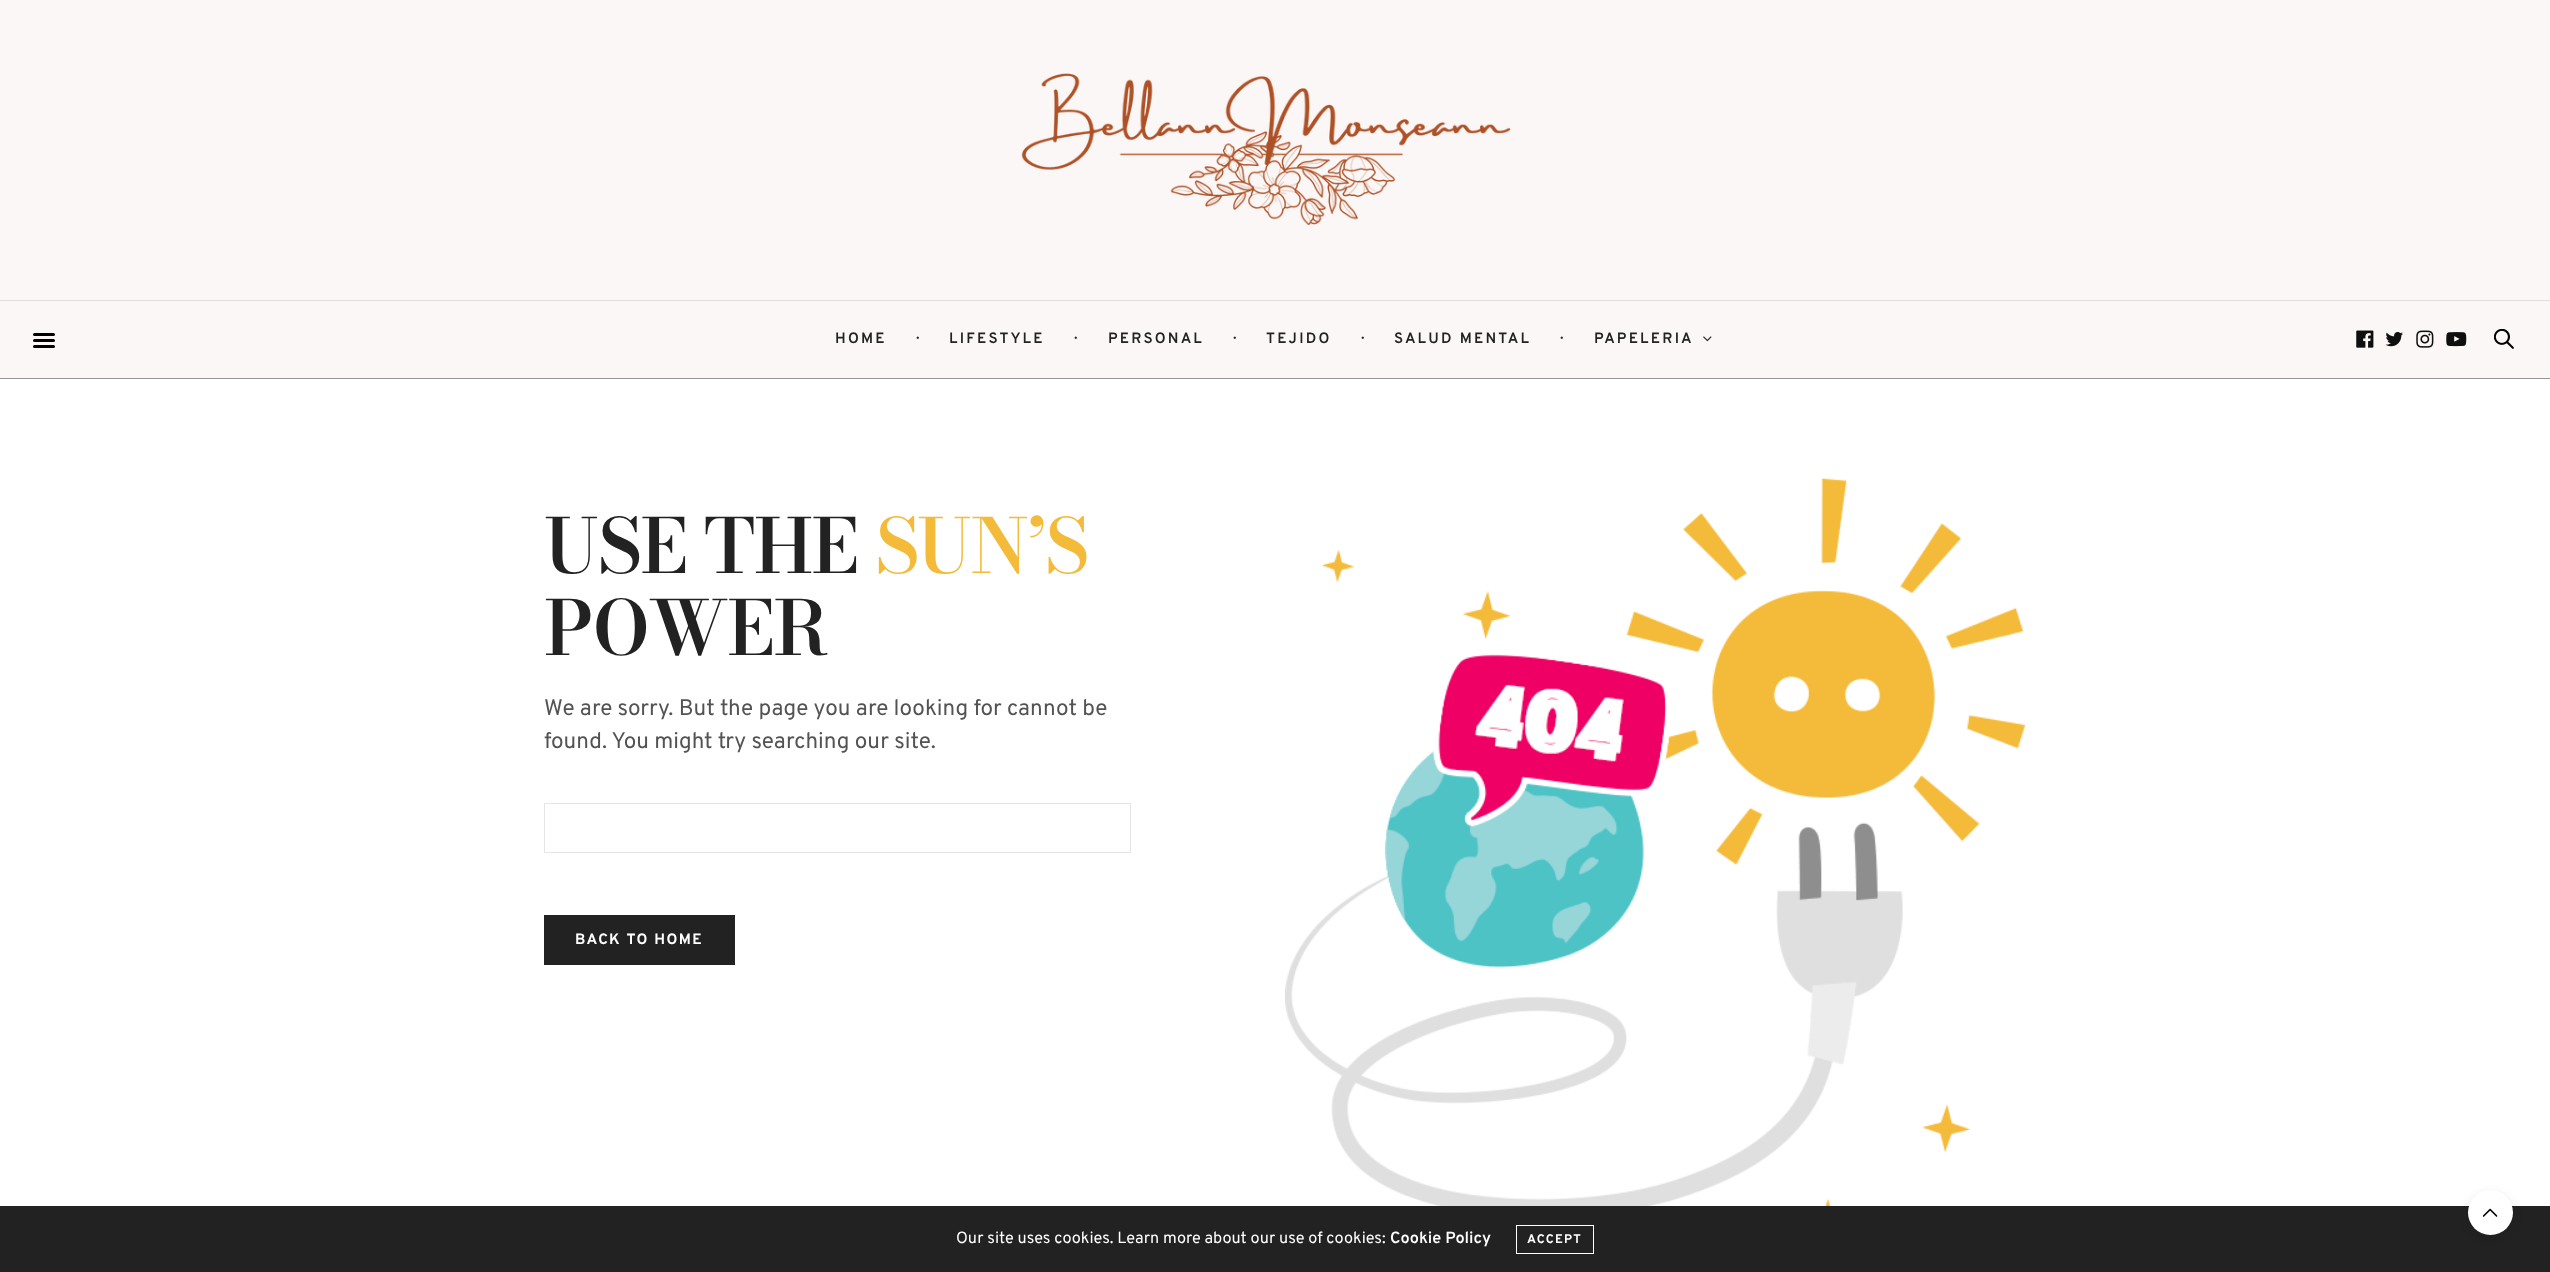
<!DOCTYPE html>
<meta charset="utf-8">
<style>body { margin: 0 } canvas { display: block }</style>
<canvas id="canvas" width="2550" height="1272"></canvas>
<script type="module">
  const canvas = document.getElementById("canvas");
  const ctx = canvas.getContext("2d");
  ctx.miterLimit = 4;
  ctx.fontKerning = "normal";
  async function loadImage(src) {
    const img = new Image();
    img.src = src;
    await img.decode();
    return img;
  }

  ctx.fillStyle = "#ffffff";
  ctx.fillRect(0, 0, 2550, 1272);
  ctx.fillStyle = "#faf7f6";
  ctx.fillRect(0, 0, 2550, 300);
  ctx.fillStyle = "#e1dedd";
  ctx.fillRect(0, 300, 2550, 1);
  ctx.drawImage(await loadImage("img1.png"), 1021, 73, 490, 152);
  ctx.fillStyle = "#faf7f6";
  ctx.fillRect(0, 301, 2550, 77);
  ctx.fillStyle = "#959595";
  ctx.fillRect(0, 378, 2550, 1);
  ctx.fillStyle = "#000000";
  ctx.beginPath();
  ctx.roundRect(33, 333, 22, 3, 1.5);
  ctx.fill();
  ctx.beginPath();
  ctx.roundRect(33, 339, 22, 3, 1.5);
  ctx.fill();
  ctx.beginPath();
  ctx.roundRect(33, 345, 22, 3, 1.5);
  ctx.fill();
  ctx.letterSpacing = "2.25px";
  ctx.font = "600 15px Overpass";
  ctx.fillStyle = "#222222";
  ctx.fillText("HOME", 835, 343);
  ctx.fillText("·", 916, 343);
  ctx.fillText("LIFESTYLE", 949, 343);
  ctx.fillText("·", 1074, 343);
  ctx.fillText("PERSONAL", 1108, 343);
  ctx.fillText("·", 1233, 343);
  ctx.fillText("TEJIDO", 1266, 343);
  ctx.fillText("·", 1361, 343);
  ctx.fillText("SALUD MENTAL", 1394, 343);
  ctx.fillText("·", 1560, 343);
  ctx.fillText("PAPELERIA", 1594, 343);
  ctx.drawImage(await loadImage("img2.png"), 1703, 336, 9, 6);
  ctx.drawImage(await loadImage("img3.png"), 2356, 330, 18, 18);
  ctx.drawImage(await loadImage("img4.png"), 2385, 332, 18, 15);
  ctx.drawImage(await loadImage("img5.png"), 2416, 330, 18, 18);
  ctx.drawImage(await loadImage("img6.png"), 2446, 332, 21, 15);
  ctx.drawImage(await loadImage("img7.png"), 2494, 329, 20, 20);
  ctx.drawImage(await loadImage("img8.png"), 1285, 478, 740, 728);
  ctx.letterSpacing = "-1.5px";
  ctx.font = "600 75px Bodoni Moda";
  ctx.fillText("USE THE", 544, 573);
  ctx.fillStyle = "#f4ba39";
  ctx.fillText("SUN’S", 875, 573);
  ctx.fillStyle = "#222222";
  ctx.fillText("POWER", 544, 655);
  ctx.letterSpacing = "0px";
  ctx.font = "22.5px Overpass";
  ctx.fillStyle = "#545353";
  ctx.fillText("We are sorry. But the page you are looking for cannot be", 544, 715);
  ctx.fillText("found. You might try searching our site.", 544, 748);
  ctx.strokeStyle = "#e5e5e5";
  ctx.strokeRect(544.5, 803.5, 586, 49);
  ctx.fillStyle = "#222222";
  ctx.fillRect(544, 915, 191, 50);
  ctx.letterSpacing = "1.5px";
  ctx.font = "bold 15px Overpass";
  ctx.fillStyle = "#ffffff";
  ctx.fillText("BACK TO HOME", 575, 944);
  ctx.fillStyle = "#222222";
  ctx.fillRect(0, 1206, 2550, 66);
  ctx.letterSpacing = "0px";
  ctx.font = "16.25px Overpass";
  ctx.fillStyle = "#ffffff";
  ctx.fillText("Our site uses cookies. Learn more about our use of cookies:", 956, 1243);
  ctx.font = "600 16.25px Overpass";
  ctx.fillText("Cookie Policy", 1390, 1243);
  ctx.strokeStyle = "#ffffff";
  ctx.strokeRect(1516.5, 1225.5, 77, 28);
  ctx.letterSpacing = "1.25px";
  ctx.font = "bold 12.5px Overpass";
  ctx.fillText("ACCEPT", 1527, 1243);
  ctx.fillStyle = "rgba(0, 0, 0, 0.1)";
  ctx.filter = "blur(5px)";
  ctx.beginPath();
  ctx.roundRect(2468, 1193, 45, 45, 22.5);
  ctx.fill();
  ctx.filter = "none";
  ctx.fillStyle = "#ffffff";
  ctx.beginPath();
  ctx.arc(2490.5, 1212.5, 22.5, 0, Math.PI * 2);
  ctx.fill();
  ctx.drawImage(await loadImage("img9.png"), 2482, 1208, 16, 9);
</script>
